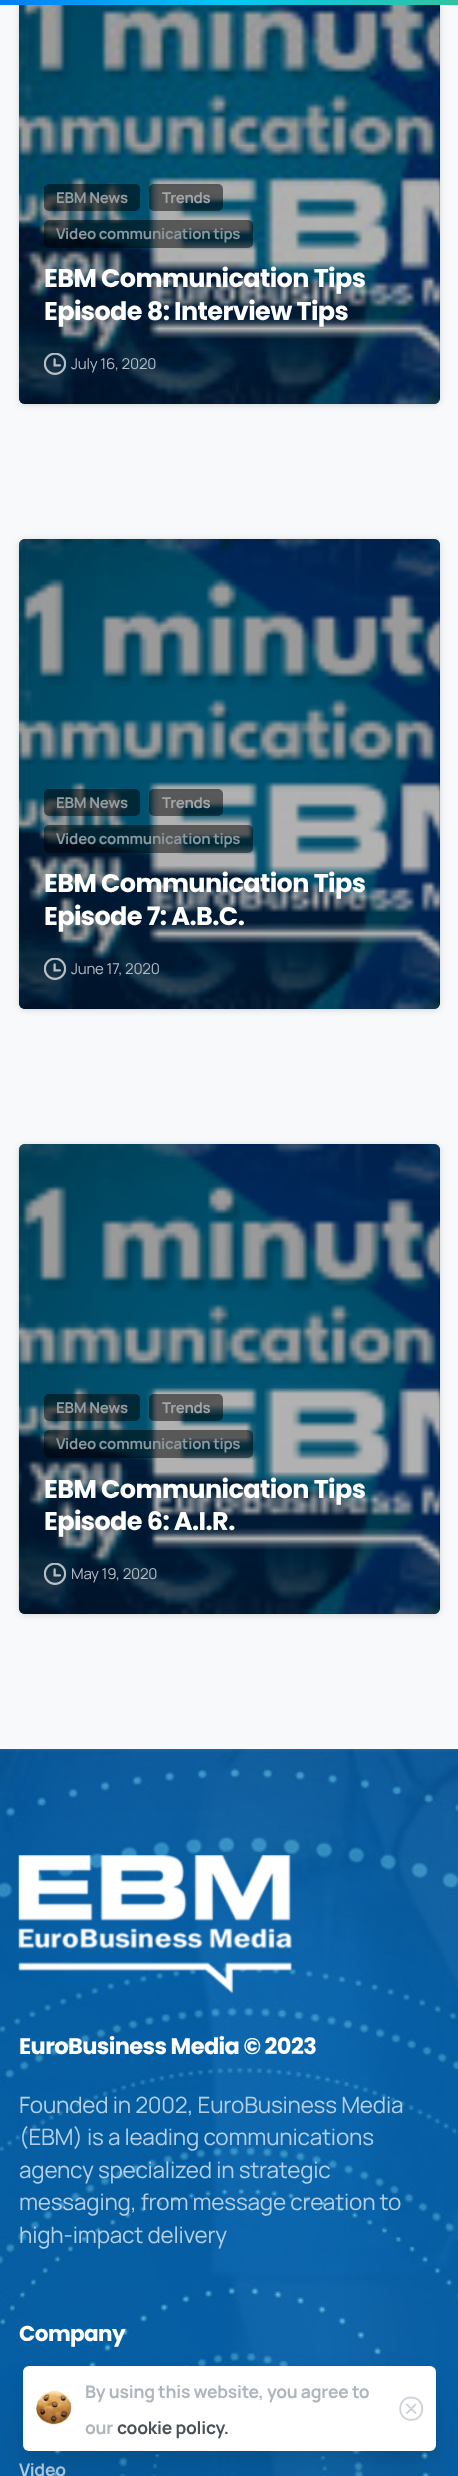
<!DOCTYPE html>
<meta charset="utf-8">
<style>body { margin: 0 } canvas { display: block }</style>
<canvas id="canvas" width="458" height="2476"></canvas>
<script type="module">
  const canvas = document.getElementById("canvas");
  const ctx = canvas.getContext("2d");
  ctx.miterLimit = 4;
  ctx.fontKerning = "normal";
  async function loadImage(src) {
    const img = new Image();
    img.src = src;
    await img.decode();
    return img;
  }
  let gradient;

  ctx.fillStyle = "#ffffff";
  ctx.fillRect(0, 0, 458, 2476);
  ctx.fillStyle = "#f8f9fa";
  ctx.fillRect(0, 5, 458, 1744);
  ctx.fillStyle = "rgba(0, 0, 0, 0.15)";
  ctx.filter = "blur(3px)";
  ctx.beginPath();
  ctx.roundRect(19, -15, 421, 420, 6);
  ctx.fill();
  ctx.filter = "none";
  ctx.fillStyle = "#000000";
  ctx.beginPath();
  ctx.roundRect(19, -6, 421, 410, 6);
  ctx.fill();
  gradient = ctx.createLinearGradient(-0.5, 2.5, 458, 2.5);
  gradient.addColorStop(0, "#037ef3");
  gradient.addColorStop(0.5, "#02c8f4");
  gradient.addColorStop(1, "#30c39e");
  ctx.fillStyle = gradient;
  ctx.fillRect(0, 0, 458, 5);
  ctx.drawImage(await loadImage("img1.png"), 19, 5, 421, 399);
  ctx.fillStyle = "rgba(0, 0, 0, 0.5)";
  ctx.beginPath();
  ctx.roundRect(44, 184, 96, 27, 5);
  ctx.fill();
  ctx.letterSpacing = "-0.2px";
  ctx.font = "bold 15px Manrope";
  ctx.fillStyle = "#939ca0";
  ctx.fillText("EBM News", 56, 203);
  ctx.fillStyle = "rgba(0, 0, 0, 0.5)";
  ctx.beginPath();
  ctx.roundRect(149, 184, 74, 27, 5);
  ctx.fill();
  ctx.fillStyle = "#a2a6a8";
  ctx.fillText("Trends", 162, 203);
  ctx.fillStyle = "rgba(0, 0, 0, 0.5)";
  ctx.beginPath();
  ctx.roundRect(44, 220, 209, 28, 5);
  ctx.fill();
  ctx.fillStyle = "#8b989e";
  ctx.fillText("Video communication tips", 56, 239);
  ctx.letterSpacing = "-0.6px";
  ctx.font = "bold 25.5px Poppins";
  ctx.fillStyle = "#ffffff";
  ctx.fillText("EBM Communication Tips", 44, 287);
  ctx.fillText("Episode 8: Interview Tips", 44, 320);
  ctx.drawImage(await loadImage("img2.png"), 44, 353, 22, 22);
  ctx.letterSpacing = "-0.2px";
  ctx.font = "15px Manrope";
  ctx.fillStyle = "#b5bcc4";
  ctx.fillText("July 16, 2020", 71, 369);
  ctx.fillStyle = "rgba(0, 0, 0, 0.15)";
  ctx.filter = "blur(3px)";
  ctx.beginPath();
  ctx.roundRect(19, 540, 421, 470, 6);
  ctx.fill();
  ctx.filter = "none";
  ctx.fillStyle = "#000000";
  ctx.beginPath();
  ctx.roundRect(19, 539, 421, 470, 6);
  ctx.fill();
  ctx.drawImage(await loadImage("img3.png"), 19, 539, 421, 470);
  ctx.fillStyle = "rgba(0, 0, 0, 0.5)";
  ctx.beginPath();
  ctx.roundRect(44, 789, 96, 27, 5);
  ctx.fill();
  ctx.font = "bold 15px Manrope";
  ctx.fillStyle = "#939ca0";
  ctx.fillText("EBM News", 56, 808);
  ctx.fillStyle = "rgba(0, 0, 0, 0.5)";
  ctx.beginPath();
  ctx.roundRect(149, 789, 74, 27, 5);
  ctx.fill();
  ctx.fillStyle = "#a2a6a8";
  ctx.fillText("Trends", 162, 808);
  ctx.fillStyle = "rgba(0, 0, 0, 0.5)";
  ctx.beginPath();
  ctx.roundRect(44, 825, 209, 28, 5);
  ctx.fill();
  ctx.fillStyle = "#8b989e";
  ctx.fillText("Video communication tips", 56, 844);
  ctx.letterSpacing = "-0.6px";
  ctx.font = "bold 25.5px Poppins";
  ctx.fillStyle = "#ffffff";
  ctx.fillText("EBM Communication Tips", 44, 892);
  ctx.fillText("Episode 7: A.B.C.", 44, 925);
  ctx.drawImage(await loadImage("img4.png"), 44, 958, 22, 22);
  ctx.letterSpacing = "-0.2px";
  ctx.font = "15px Manrope";
  ctx.fillStyle = "#b5bcc4";
  ctx.fillText("June 17, 2020", 71, 974);
  ctx.fillStyle = "rgba(0, 0, 0, 0.15)";
  ctx.filter = "blur(3px)";
  ctx.beginPath();
  ctx.roundRect(19, 1145, 421, 470, 6);
  ctx.fill();
  ctx.filter = "none";
  ctx.fillStyle = "#000000";
  ctx.beginPath();
  ctx.roundRect(19, 1144, 421, 470, 6);
  ctx.fill();
  ctx.drawImage(await loadImage("img5.png"), 18, 1144, 422, 470);
  ctx.fillStyle = "rgba(0, 0, 0, 0.5)";
  ctx.beginPath();
  ctx.roundRect(44, 1394, 96, 27, 5);
  ctx.fill();
  ctx.font = "bold 15px Manrope";
  ctx.fillStyle = "#939ca0";
  ctx.fillText("EBM News", 56, 1413);
  ctx.fillStyle = "rgba(0, 0, 0, 0.5)";
  ctx.beginPath();
  ctx.roundRect(149, 1394, 74, 27, 5);
  ctx.fill();
  ctx.fillStyle = "#a2a6a8";
  ctx.fillText("Trends", 162, 1413);
  ctx.fillStyle = "rgba(0, 0, 0, 0.5)";
  ctx.beginPath();
  ctx.roundRect(44, 1430, 209, 28, 5);
  ctx.fill();
  ctx.fillStyle = "#8b989e";
  ctx.fillText("Video communication tips", 56, 1449);
  ctx.letterSpacing = "-0.6px";
  ctx.font = "bold 25.5px Poppins";
  ctx.fillStyle = "#ffffff";
  ctx.fillText("EBM Communication Tips", 44, 1498);
  ctx.fillText("Episode 6: A.I.R.", 44, 1530);
  ctx.drawImage(await loadImage("img6.png"), 44, 1563, 22, 22);
  ctx.letterSpacing = "-0.2px";
  ctx.font = "15px Manrope";
  ctx.fillStyle = "#b5bcc4";
  ctx.fillText("May 19, 2020", 71, 1579);
  ctx.drawImage(await loadImage("img7.png"), 0, 1749, 458, 727);
  ctx.drawImage(await loadImage("img8.png"), 0, 1749, 458, 727);
  ctx.drawImage(await loadImage("img9.png"), 18, 1855, 274, 139);
  ctx.letterSpacing = "-0.6px";
  ctx.font = "bold 22.5px Poppins";
  ctx.fillStyle = "#ffffff";
  ctx.fillText("EuroBusiness Media © 2023", 19, 2054);
  ctx.letterSpacing = "-0.2px";
  ctx.font = "22.5px Manrope";
  ctx.fillStyle = "#b5d0e5";
  ctx.fillText("Founded in 2002, EuroBusiness Media", 19, 2113);
  ctx.fillText("(EBM) is a leading communications", 19, 2145);
  ctx.fillText("agency specialized in strategic", 19, 2178);
  ctx.fillText("messaging, from message creation to", 19, 2210);
  ctx.fillText("high-impact delivery", 19, 2243);
  ctx.letterSpacing = "-0.6px";
  ctx.font = "bold 21.5px Poppins";
  ctx.fillStyle = "#ffffff";
  ctx.fillText("Company", 19, 2341);
  ctx.letterSpacing = "-0.2px";
  ctx.font = "bold 17.5px Manrope";
  ctx.fillStyle = "#b5d0e5";
  ctx.fillText("Video", 19, 2476);
  ctx.fillStyle = "rgba(0, 0, 0, 0.1)";
  ctx.filter = "blur(22px)";
  ctx.beginPath();
  ctx.roundRect(23, 2396, 413, 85, 6);
  ctx.fill();
  ctx.filter = "none";
  ctx.fillStyle = "rgba(0, 0, 0, 0.05)";
  ctx.filter = "blur(5px)";
  ctx.beginPath();
  ctx.roundRect(23, 2371, 413, 85, 6);
  ctx.fill();
  ctx.filter = "none";
  ctx.fillStyle = "rgba(0, 0, 0, 0.1)";
  ctx.filter = "blur(12px)";
  ctx.beginPath();
  ctx.roundRect(359, 2386, 62, 63, 31);
  ctx.fill();
  ctx.filter = "none";
  ctx.fillStyle = "#ffffff";
  ctx.beginPath();
  ctx.roundRect(23, 2366, 413, 85, 6);
  ctx.fill();
  ctx.drawImage(await loadImage("img10.png"), 36, 2390, 36, 35);
  ctx.fillStyle = "#adb5bd";
  ctx.fillText("By using this website, you agree to", 85, 2398);
  ctx.beginPath();
  ctx.moveTo(411, 2420);
  ctx.bezierCurveTo(426, 2420, 426, 2397.5, 411, 2397.5);
  ctx.bezierCurveTo(396.5, 2397.5, 396.5, 2420, 411, 2420);
  ctx.closePath();
  ctx.moveTo(415.5, 2404.5);
  ctx.lineTo(407, 2413);
  ctx.moveTo(407, 2404.5);
  ctx.lineTo(415.5, 2413);
  ctx.strokeStyle = "#ced4da";
  ctx.lineWidth = 1.9;
  ctx.lineCap = "round";
  ctx.lineJoin = "round";
  ctx.stroke();
  ctx.fillText("our", 85, 2434);
  ctx.fillStyle = "#495057";
  ctx.fillText("cookie policy.", 117, 2434);
</script>
